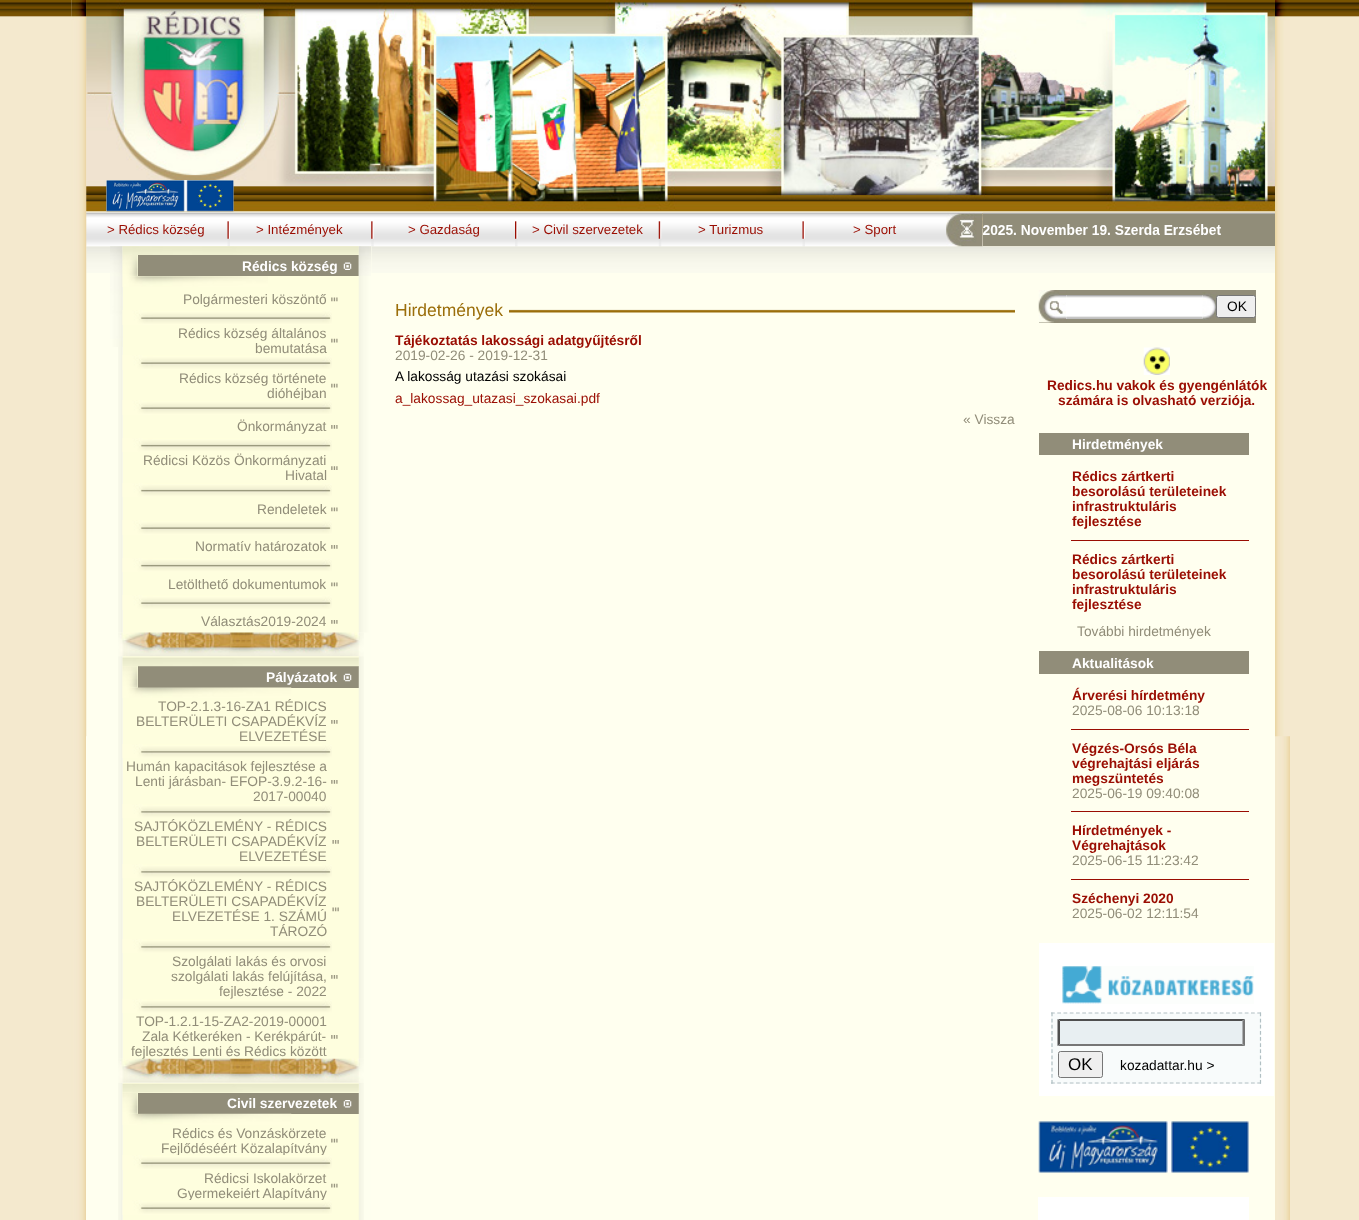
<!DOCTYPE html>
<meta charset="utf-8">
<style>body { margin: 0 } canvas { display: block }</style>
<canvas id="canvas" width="1359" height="1220"></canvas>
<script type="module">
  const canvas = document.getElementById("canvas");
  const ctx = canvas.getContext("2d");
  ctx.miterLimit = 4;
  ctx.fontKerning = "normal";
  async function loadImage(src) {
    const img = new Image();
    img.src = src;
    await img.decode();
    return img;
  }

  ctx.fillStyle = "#f4e9ce";
  ctx.fillRect(0, 0, 1359, 1220);
  ctx.drawImage(await loadImage("img1.png"), 0, 0, 1359, 17);
  ctx.drawImage(await loadImage("img2.png"), 71, 0, 16, 1220);
  ctx.drawImage(await loadImage("img6.png"), 86, 212, 1189, 34);
  ctx.fillStyle = "#ffffef";
  ctx.fillRect(86, 246, 1189, 974);
  ctx.drawImage(await loadImage("img20.png"), 86, 246, 1189, 27);
  ctx.drawImage(await loadImage("img21.png"), 110, 246, 262, 974);
  ctx.drawImage(await loadImage("img22.png"), 118, 246, 5, 387);
  ctx.fillStyle = "#fefede";
  ctx.fillRect(123, 246, 236, 387);
  ctx.drawImage(await loadImage("img7.png"), 86, 212, 142, 35);
  ctx.drawImage(await loadImage("img3.png"), 71, 0, 16, 737);
  ctx.drawImage(await loadImage("img8.png"), 227, 212, 3, 35);
  ctx.fillStyle = "#918d79";
  ctx.fillRect(138, 255, 221, 21);
  ctx.drawImage(await loadImage("img35.png"), 358, 246, 14, 387);
  ctx.drawImage(await loadImage("img9.png"), 230, 212, 142, 35);
  ctx.drawImage(await loadImage("img11.png"), 373, 212, 142, 35);
  ctx.drawImage(await loadImage("img10.png"), 371, 212, 3, 35);
  ctx.drawImage(await loadImage("img13.png"), 517, 212, 142, 35);
  ctx.drawImage(await loadImage("img12.png"), 515, 212, 3, 35);
  ctx.drawImage(await loadImage("img15.png"), 661, 212, 142, 35);
  ctx.drawImage(await loadImage("img14.png"), 658, 212, 4, 35);
  ctx.drawImage(await loadImage("img16.png"), 802, 212, 3, 35);
  ctx.drawImage(await loadImage("img17.png"), 805, 212, 141, 35);
  ctx.drawImage(await loadImage("img18.png"), 946, 212, 37, 35);
  ctx.drawImage(await loadImage("img19.png"), 982, 212, 293, 35);
  ctx.drawImage(await loadImage("img4.png"), 86, 0, 1189, 213);
  ctx.drawImage(await loadImage("img5.png"), 106, 180, 128, 32);
  ctx.font = "13.25px Liberation Sans";
  ctx.fillStyle = "#9a0d02";
  ctx.fillText("> Rédics község", 107, 234);
  ctx.fillText("> Intézmények", 256, 234);
  ctx.fillText("> Gazdaság", 408, 234);
  ctx.fillText("> Civil szervezetek", 532, 234);
  ctx.fillText("> Turizmus", 698, 234);
  ctx.fillText("> Sport", 853, 234);
  ctx.drawImage(await loadImage("img23.png"), 110, 246, 13, 101);
  ctx.drawImage(await loadImage("img24.png"), 122, 246, 237, 9);
  ctx.drawImage(await loadImage("img25.png"), 122, 255, 16, 22);
  ctx.font = "bold 13.75px Liberation Sans";
  ctx.fillStyle = "#ffffff";
  ctx.fillText("Rédics község", 242, 271);
  ctx.drawImage(await loadImage("img26.png"), 343, 262, 9, 8);
  ctx.drawImage(await loadImage("img27.png"), 122, 276, 146, 11);
  ctx.font = "13.75px Liberation Sans";
  ctx.fillStyle = "#918d79";
  ctx.fillText("Polgármesteri köszöntő", 183, 304);
  ctx.drawImage(await loadImage("img28.png"), 331, 297, 7, 5);
  ctx.drawImage(await loadImage("img29.png"), 122, 310, 210, 15);
  ctx.fillText("Rédics község általános", 178, 338);
  ctx.fillText("bemutatása", 255, 353);
  ctx.drawImage(await loadImage("img30.png"), 331, 338, 7, 5);
  ctx.drawImage(await loadImage("img31.png"), 122, 355, 210, 15);
  ctx.fillText("Rédics község története", 179, 383);
  ctx.fillText("dióhéjban", 267, 398);
  ctx.drawImage(await loadImage("img30.png"), 331, 383, 7, 5);
  ctx.drawImage(await loadImage("img31.png"), 122, 400, 210, 15);
  ctx.fillText("Önkormányzat", 237, 431);
  ctx.drawImage(await loadImage("img32.png"), 331, 425, 7, 4);
  ctx.drawImage(await loadImage("img33.png"), 122, 438, 210, 14);
  ctx.fillText("Rédicsi Közös Önkormányzati", 143, 465);
  ctx.fillText("Hivatal", 285, 480);
  ctx.drawImage(await loadImage("img34.png"), 331, 466, 7, 4);
  ctx.drawImage(await loadImage("img33.png"), 122, 483, 210, 14);
  ctx.fillText("Rendeletek", 257, 514);
  ctx.drawImage(await loadImage("img28.png"), 331, 507, 7, 5);
  ctx.drawImage(await loadImage("img31.png"), 122, 520, 210, 15);
  ctx.fillText("Normatív határozatok", 195, 551);
  ctx.drawImage(await loadImage("img32.png"), 331, 545, 7, 4);
  ctx.drawImage(await loadImage("img33.png"), 122, 558, 210, 14);
  ctx.fillText("Letölthető dokumentumok", 168, 589);
  ctx.drawImage(await loadImage("img28.png"), 331, 582, 7, 5);
  ctx.drawImage(await loadImage("img31.png"), 122, 595, 210, 15);
  ctx.fillText("Választás2019-2024", 201, 626);
  ctx.drawImage(await loadImage("img32.png"), 331, 620, 7, 4);
  ctx.drawImage(await loadImage("img36.png"), 358, 246, 13, 30);
  ctx.drawImage(await loadImage("img38.png"), 118, 656, 5, 403);
  ctx.fillStyle = "#fefede";
  ctx.fillRect(123, 656, 236, 403);
  ctx.fillStyle = "#918d79";
  ctx.fillRect(138, 666, 221, 22);
  ctx.drawImage(await loadImage("img47.png"), 358, 656, 6, 403);
  ctx.drawImage(await loadImage("img37.png"), 118, 632, 246, 25);
  ctx.drawImage(await loadImage("img39.png"), 122, 657, 237, 10);
  ctx.drawImage(await loadImage("img40.png"), 122, 666, 16, 22);
  ctx.font = "bold 13.75px Liberation Sans";
  ctx.fillStyle = "#ffffff";
  ctx.fillText("Pályázatok", 266, 682);
  ctx.drawImage(await loadImage("img41.png"), 343, 673, 9, 9);
  ctx.drawImage(await loadImage("img42.png"), 122, 687, 170, 11);
  ctx.font = "13.75px Liberation Sans";
  ctx.fillStyle = "#918d79";
  ctx.fillText("TOP-2.1.3-16-ZA1 RÉDICS", 158, 711);
  ctx.fillText("BELTERÜLETI CSAPADÉKVÍZ", 136, 726);
  ctx.fillText("ELVEZETÉSE", 239, 741);
  ctx.drawImage(await loadImage("img32.png"), 331, 720, 7, 4);
  ctx.drawImage(await loadImage("img43.png"), 122, 744, 210, 14);
  ctx.fillText("Humán kapacitások fejlesztése a", 126, 771);
  ctx.fillText("Lenti járásban- EFOP-3.9.2-16-", 135, 786);
  ctx.fillText("2017-00040", 253, 801);
  ctx.drawImage(await loadImage("img32.png"), 331, 780, 7, 4);
  ctx.drawImage(await loadImage("img43.png"), 122, 804, 210, 14);
  ctx.fillText("SAJTÓKÖZLEMÉNY - RÉDICS", 134, 831);
  ctx.fillText("BELTERÜLETI CSAPADÉKVÍZ", 136, 846);
  ctx.fillText("ELVEZETÉSE", 239, 861);
  ctx.drawImage(await loadImage("img44.png"), 332, 840, 7, 4);
  ctx.drawImage(await loadImage("img43.png"), 122, 864, 210, 14);
  ctx.fillText("SAJTÓKÖZLEMÉNY - RÉDICS", 134, 891);
  ctx.fillText("BELTERÜLETI CSAPADÉKVÍZ", 136, 906);
  ctx.fillText("ELVEZETÉSE 1. SZÁMÚ", 172, 921);
  ctx.fillText("TÁROZÓ", 270, 936);
  ctx.drawImage(await loadImage("img45.png"), 332, 907, 7, 5);
  ctx.drawImage(await loadImage("img43.png"), 122, 939, 210, 14);
  ctx.fillText("Szolgálati lakás és orvosi", 172, 966);
  ctx.fillText("szolgálati lakás felújítása,", 171, 981);
  ctx.fillText("fejlesztése - 2022", 219, 996);
  ctx.drawImage(await loadImage("img32.png"), 331, 975, 7, 4);
  ctx.drawImage(await loadImage("img46.png"), 122, 998, 210, 15);
  ctx.fillText("TOP-1.2.1-15-ZA2-2019-00001", 136, 1026);
  ctx.fillText("Zala Kétkeréken - Kerékpárút-", 142, 1041);
  ctx.fillText("fejlesztés Lenti és Rédics között", 131, 1056);
  ctx.drawImage(await loadImage("img32.png"), 331, 1035, 7, 4);
  ctx.drawImage(await loadImage("img49.png"), 118, 1082, 5, 138);
  ctx.fillStyle = "#fefede";
  ctx.fillRect(123, 1083, 236, 137);
  ctx.fillStyle = "#918d79";
  ctx.fillRect(138, 1093, 221, 21);
  ctx.drawImage(await loadImage("img54.png"), 358, 1082, 6, 138);
  ctx.drawImage(await loadImage("img48.png"), 118, 1058, 246, 25);
  ctx.drawImage(await loadImage("img50.png"), 122, 1083, 237, 10);
  ctx.drawImage(await loadImage("img51.png"), 122, 1092, 16, 22);
  ctx.font = "bold 13.75px Liberation Sans";
  ctx.fillStyle = "#ffffff";
  ctx.fillText("Civil szervezetek", 227, 1108);
  ctx.drawImage(await loadImage("img52.png"), 343, 1100, 9, 8);
  ctx.drawImage(await loadImage("img53.png"), 122, 1113, 170, 12);
  ctx.font = "13.75px Liberation Sans";
  ctx.fillStyle = "#918d79";
  ctx.fillText("Rédics és Vonzáskörzete", 172, 1138);
  ctx.fillText("Fejlődéséért Közalapítvány", 161, 1153);
  ctx.drawImage(await loadImage("img30.png"), 331, 1138, 7, 5);
  ctx.drawImage(await loadImage("img31.png"), 122, 1155, 210, 15);
  ctx.fillText("Rédicsi Iskolakörzet", 204, 1183);
  ctx.fillText("Gyermekeiért Alapítvány", 177, 1198);
  ctx.drawImage(await loadImage("img30.png"), 331, 1183, 7, 5);
  ctx.drawImage(await loadImage("img31.png"), 122, 1200, 210, 15);
  ctx.drawImage(await loadImage("img55.png"), 509, 309, 506, 4);
  ctx.font = "17.5px Liberation Sans";
  ctx.fillStyle = "#9b6e0a";
  ctx.fillText("Hirdetmények", 395, 316);
  ctx.font = "bold 13.75px Liberation Sans";
  ctx.fillStyle = "#9a0d02";
  ctx.fillText("Tájékoztatás lakossági adatgyűjtésről", 395, 345);
  ctx.font = "13.75px Liberation Sans";
  ctx.fillStyle = "#918d79";
  ctx.fillText("2019-02-26 - 2019-12-31", 395, 360);
  ctx.fillStyle = "#000000";
  ctx.fillText("A lakosság utazási szokásai", 395, 381);
  ctx.fillStyle = "#9a0d02";
  ctx.fillText("a_lakossag_utazasi_szokasai.pdf", 395, 403);
  ctx.fillStyle = "#918d79";
  ctx.fillText("« Vissza", 963, 424);
  ctx.fillRect(1039, 322, 27, 1);
  ctx.fillRect(1066, 290, 190, 33);
  ctx.drawImage(await loadImage("img56.png"), 1038, 290, 29, 33);
  ctx.fillStyle = "#ffffff";
  ctx.fillRect(1066, 295, 137, 24);
  ctx.drawImage(await loadImage("img57.png"), 1066, 295, 137, 24);
  ctx.drawImage(await loadImage("img58.png"), 1202, 292, 15, 28);
  ctx.fillStyle = "#efefef";
  ctx.beginPath();
  ctx.roundRect(1216.5, 295.5, 39, 22, 2);
  ctx.fill();
  ctx.strokeStyle = "#767676";
  ctx.stroke();
  ctx.fillStyle = "#000000";
  ctx.fillText("OK", 1227, 311);
  ctx.drawImage(await loadImage("img59.png"), 1143, 347, 27, 28);
  ctx.font = "bold 13.75px Liberation Sans";
  ctx.fillStyle = "#9a0d02";
  ctx.fillText("Redics.hu vakok és gyengénlátók", 1047, 390);
  ctx.fillText("számára is olvasható verziója.", 1058, 405);
  ctx.fillStyle = "#918d79";
  ctx.fillRect(1039, 433, 210, 22);
  ctx.fillStyle = "#ffffff";
  ctx.fillText("Hirdetmények", 1072, 449);
  ctx.fillStyle = "#9a0d02";
  ctx.fillText("Rédics zártkerti", 1072, 481);
  ctx.fillText("besorolású területeinek", 1072, 496);
  ctx.fillText("infrastruktuláris", 1072, 511);
  ctx.fillText("fejlesztése", 1072, 526);
  ctx.fillRect(1071, 540, 178, 1);
  ctx.fillText("Rédics zártkerti", 1072, 564);
  ctx.fillText("besorolású területeinek", 1072, 579);
  ctx.fillText("infrastruktuláris", 1072, 594);
  ctx.fillText("fejlesztése", 1072, 609);
  ctx.font = "13.75px Liberation Sans";
  ctx.fillStyle = "#918d79";
  ctx.fillText("További hirdetmények", 1077, 636);
  ctx.fillRect(1039, 651, 210, 23);
  ctx.font = "bold 13.75px Liberation Sans";
  ctx.fillStyle = "#ffffff";
  ctx.fillText("Aktualitások", 1072, 668);
  ctx.fillStyle = "#9a0d02";
  ctx.fillText("Árverési hírdetmény", 1072, 700);
  ctx.font = "13.75px Liberation Sans";
  ctx.fillStyle = "#918d79";
  ctx.fillText("2025-08-06 10:13:18", 1072, 715);
  ctx.fillStyle = "#9a0d02";
  ctx.fillRect(1071, 729, 178, 1);
  ctx.font = "bold 13.75px Liberation Sans";
  ctx.fillText("Végzés-Orsós Béla", 1072, 753);
  ctx.fillText("végrehajtási eljárás", 1072, 768);
  ctx.fillText("megszüntetés", 1072, 783);
  ctx.font = "13.75px Liberation Sans";
  ctx.fillStyle = "#918d79";
  ctx.fillText("2025-06-19 09:40:08", 1072, 798);
  ctx.fillStyle = "#9a0d02";
  ctx.fillRect(1071, 811, 178, 1);
  ctx.font = "bold 13.75px Liberation Sans";
  ctx.fillText("Hírdetmények -", 1072, 835);
  ctx.fillText("Végrehajtások", 1072, 850);
  ctx.font = "13.75px Liberation Sans";
  ctx.fillStyle = "#918d79";
  ctx.fillText("2025-06-15 11:23:42", 1072, 865);
  ctx.fillStyle = "#9a0d02";
  ctx.fillRect(1071, 879, 178, 1);
  ctx.font = "bold 13.75px Liberation Sans";
  ctx.fillText("Széchenyi 2020", 1072, 903);
  ctx.font = "13.75px Liberation Sans";
  ctx.fillStyle = "#918d79";
  ctx.fillText("2025-06-02 12:11:54", 1072, 918);
  ctx.fillStyle = "#ffffff";
  ctx.fillRect(1039, 943, 235, 153);
  ctx.drawImage(await loadImage("img60.png"), 1062, 966, 192, 38);
  ctx.fillStyle = "#f8fbfb";
  ctx.fillRect(1051, 1013, 210, 71);
  ctx.beginPath();
  ctx.moveTo(1051, 1013);
  ctx.lineTo(1261, 1013);
  ctx.strokeStyle = "#b1c0c4";
  ctx.lineWidth = 1.2;
  ctx.setLineDash([3.75, 2.5]);
  ctx.stroke();
  ctx.beginPath();
  ctx.moveTo(1260.5, 1012.5);
  ctx.lineTo(1260.5, 1084);
  ctx.setLineDash([3.75, 2.39]);
  ctx.stroke();
  ctx.beginPath();
  ctx.moveTo(1051, 1083);
  ctx.lineTo(1261, 1083);
  ctx.setLineDash([3.75, 2.5]);
  ctx.stroke();
  ctx.beginPath();
  ctx.moveTo(1052, 1012.5);
  ctx.lineTo(1052, 1084);
  ctx.setLineDash([3.75, 2.39]);
  ctx.stroke();
  ctx.fillStyle = "#e8eff2";
  ctx.fillRect(1058, 1019, 187, 27);
  ctx.fillStyle = "#4f4f4f";
  ctx.beginPath();
  ctx.moveTo(1058, 1019);
  ctx.lineTo(1245, 1019);
  ctx.lineTo(1242, 1021);
  ctx.lineTo(1060, 1021);
  ctx.closePath();
  ctx.fill();
  ctx.fillStyle = "#767676";
  ctx.beginPath();
  ctx.moveTo(1245, 1019);
  ctx.lineTo(1245, 1046);
  ctx.lineTo(1242.5, 1044);
  ctx.lineTo(1242.5, 1021);
  ctx.closePath();
  ctx.fill();
  ctx.beginPath();
  ctx.moveTo(1245, 1046);
  ctx.lineTo(1058, 1046);
  ctx.lineTo(1060, 1044);
  ctx.lineTo(1242, 1044);
  ctx.closePath();
  ctx.fill();
  ctx.fillStyle = "#4f4f4f";
  ctx.beginPath();
  ctx.moveTo(1057.5, 1046);
  ctx.lineTo(1057.5, 1019);
  ctx.lineTo(1060, 1021);
  ctx.lineTo(1060, 1044);
  ctx.closePath();
  ctx.fill();
  ctx.fillStyle = "#efefef";
  ctx.beginPath();
  ctx.roundRect(1058.5, 1051.5, 44, 26, 2);
  ctx.fill();
  ctx.strokeStyle = "#767676";
  ctx.lineWidth = 1;
  ctx.setLineDash([]);
  ctx.stroke();
  ctx.font = "17px Liberation Sans";
  ctx.fillStyle = "#000000";
  ctx.fillText("OK", 1068, 1070);
  ctx.font = "13.75px Liberation Sans";
  ctx.fillText("kozadattar.hu >", 1120, 1070);
  ctx.drawImage(await loadImage("img61.png"), 1038, 1121, 211, 52);
  ctx.fillStyle = "#ffffff";
  ctx.fillRect(1038, 1197, 211, 23);
  ctx.drawImage(await loadImage("img62.png"), 1275, 736, 15, 484);
  ctx.drawImage(await loadImage("img63.png"), 1275, 0, 15, 737);
</script>
